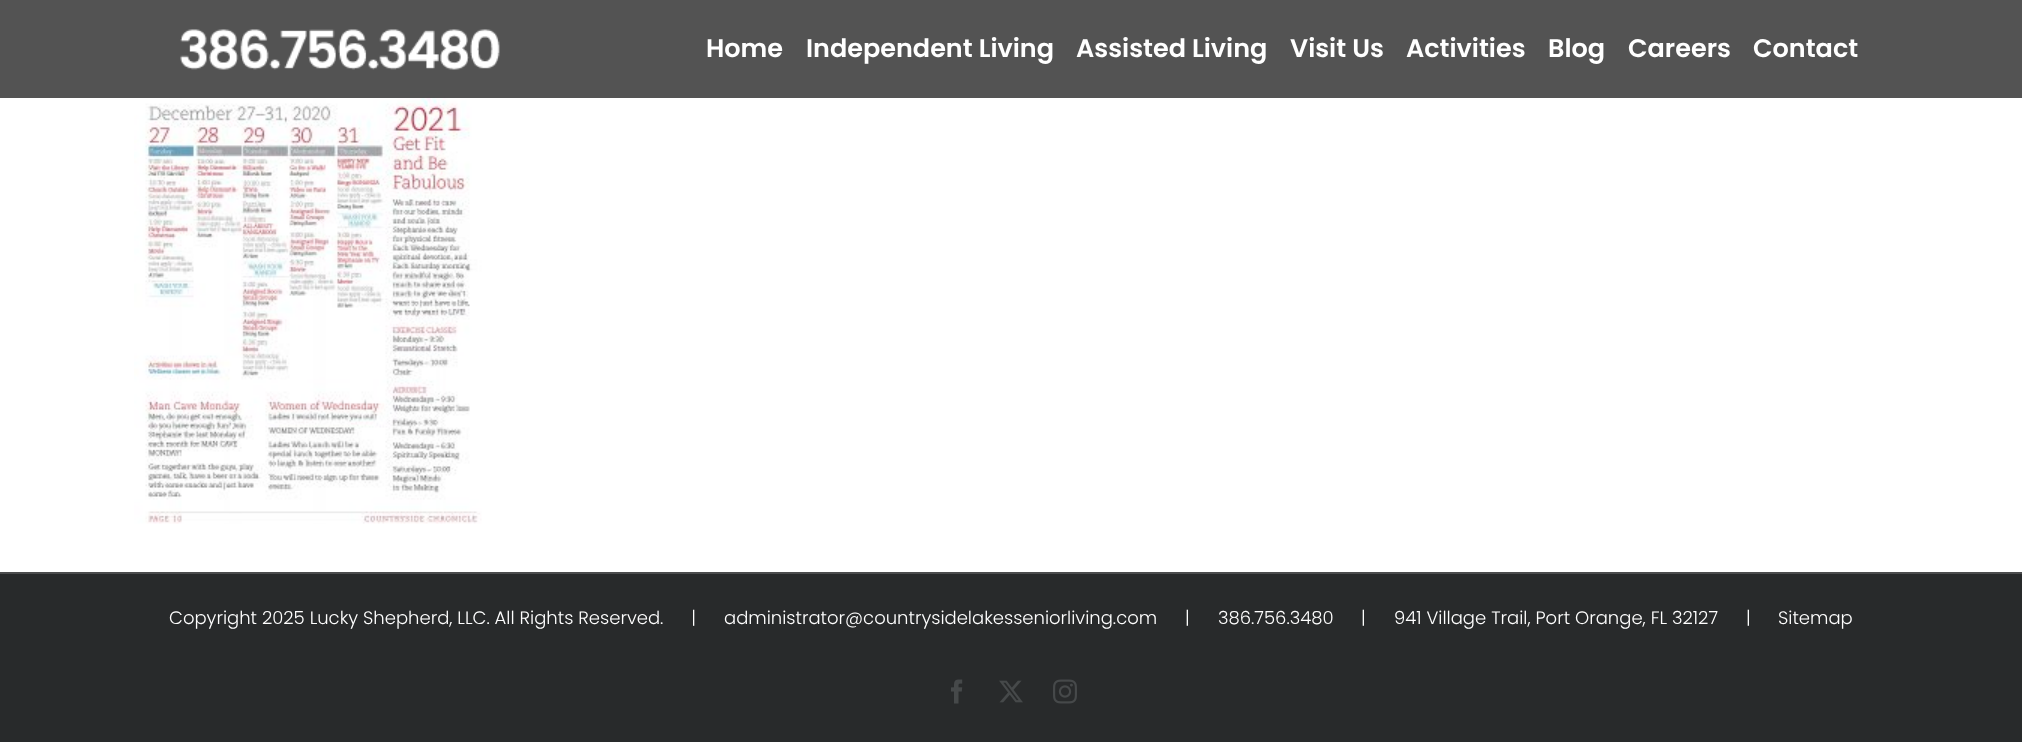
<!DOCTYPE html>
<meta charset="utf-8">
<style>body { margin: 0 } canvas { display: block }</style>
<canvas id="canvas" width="2022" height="742"></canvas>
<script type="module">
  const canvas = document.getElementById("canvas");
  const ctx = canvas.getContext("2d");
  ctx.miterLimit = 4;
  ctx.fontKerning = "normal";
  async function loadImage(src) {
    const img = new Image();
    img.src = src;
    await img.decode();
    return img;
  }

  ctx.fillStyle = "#ffffff";
  ctx.fillRect(0, 0, 2022, 742);
  ctx.drawImage(await loadImage("img2.png"), 134, 91, 348, 433);
  ctx.fillStyle = "rgba(53, 53, 53, 0.85)";
  ctx.fillRect(0, 0, 2022, 98);
  ctx.drawImage(await loadImage("img1.png"), 180, 29, 320, 41);
  ctx.font = "600 25.5px Poppins";
  ctx.fillStyle = "#ffffff";
  ctx.fillText("Home", 706, 57);
  ctx.fillText("Independent Living", 806, 57);
  ctx.fillText("Assisted Living", 1076, 57);
  ctx.fillText("Visit Us", 1290, 57);
  ctx.fillText("Activities", 1406, 57);
  ctx.fillText("Blog", 1548, 57);
  ctx.fillText("Careers", 1628, 57);
  ctx.fillText("Contact", 1753, 57);
  ctx.fillStyle = "#282a2b";
  ctx.fillRect(0, 574, 2022, 168);
  ctx.fillStyle = "#4b4c4d";
  ctx.fillRect(0, 572, 2022, 2);
  ctx.font = "300 18px Poppins";
  ctx.fillStyle = "#ffffff";
  ctx.fillText("Copyright 2025 Lucky Shepherd, LLC. All Rights Reserved.   |", 169, 624);
  ctx.fillText("administrator@countrysidelakesseniorliving.com", 724, 624);
  ctx.fillText("|", 1185, 624);
  ctx.fillText("386.756.3480", 1218, 624);
  ctx.fillText("|", 1361, 624);
  ctx.fillText("941 Village Trail, Port Orange, FL 32127", 1394, 624);
  ctx.fillText("|", 1746, 624);
  ctx.fillText("Sitemap", 1778, 624);
  ctx.drawImage(await loadImage("img3.png"), 951, 679, 12, 25);
  ctx.drawImage(await loadImage("img4.png"), 999, 680, 24, 23);
  ctx.drawImage(await loadImage("img5.png"), 1053, 679, 24, 25);
</script>
